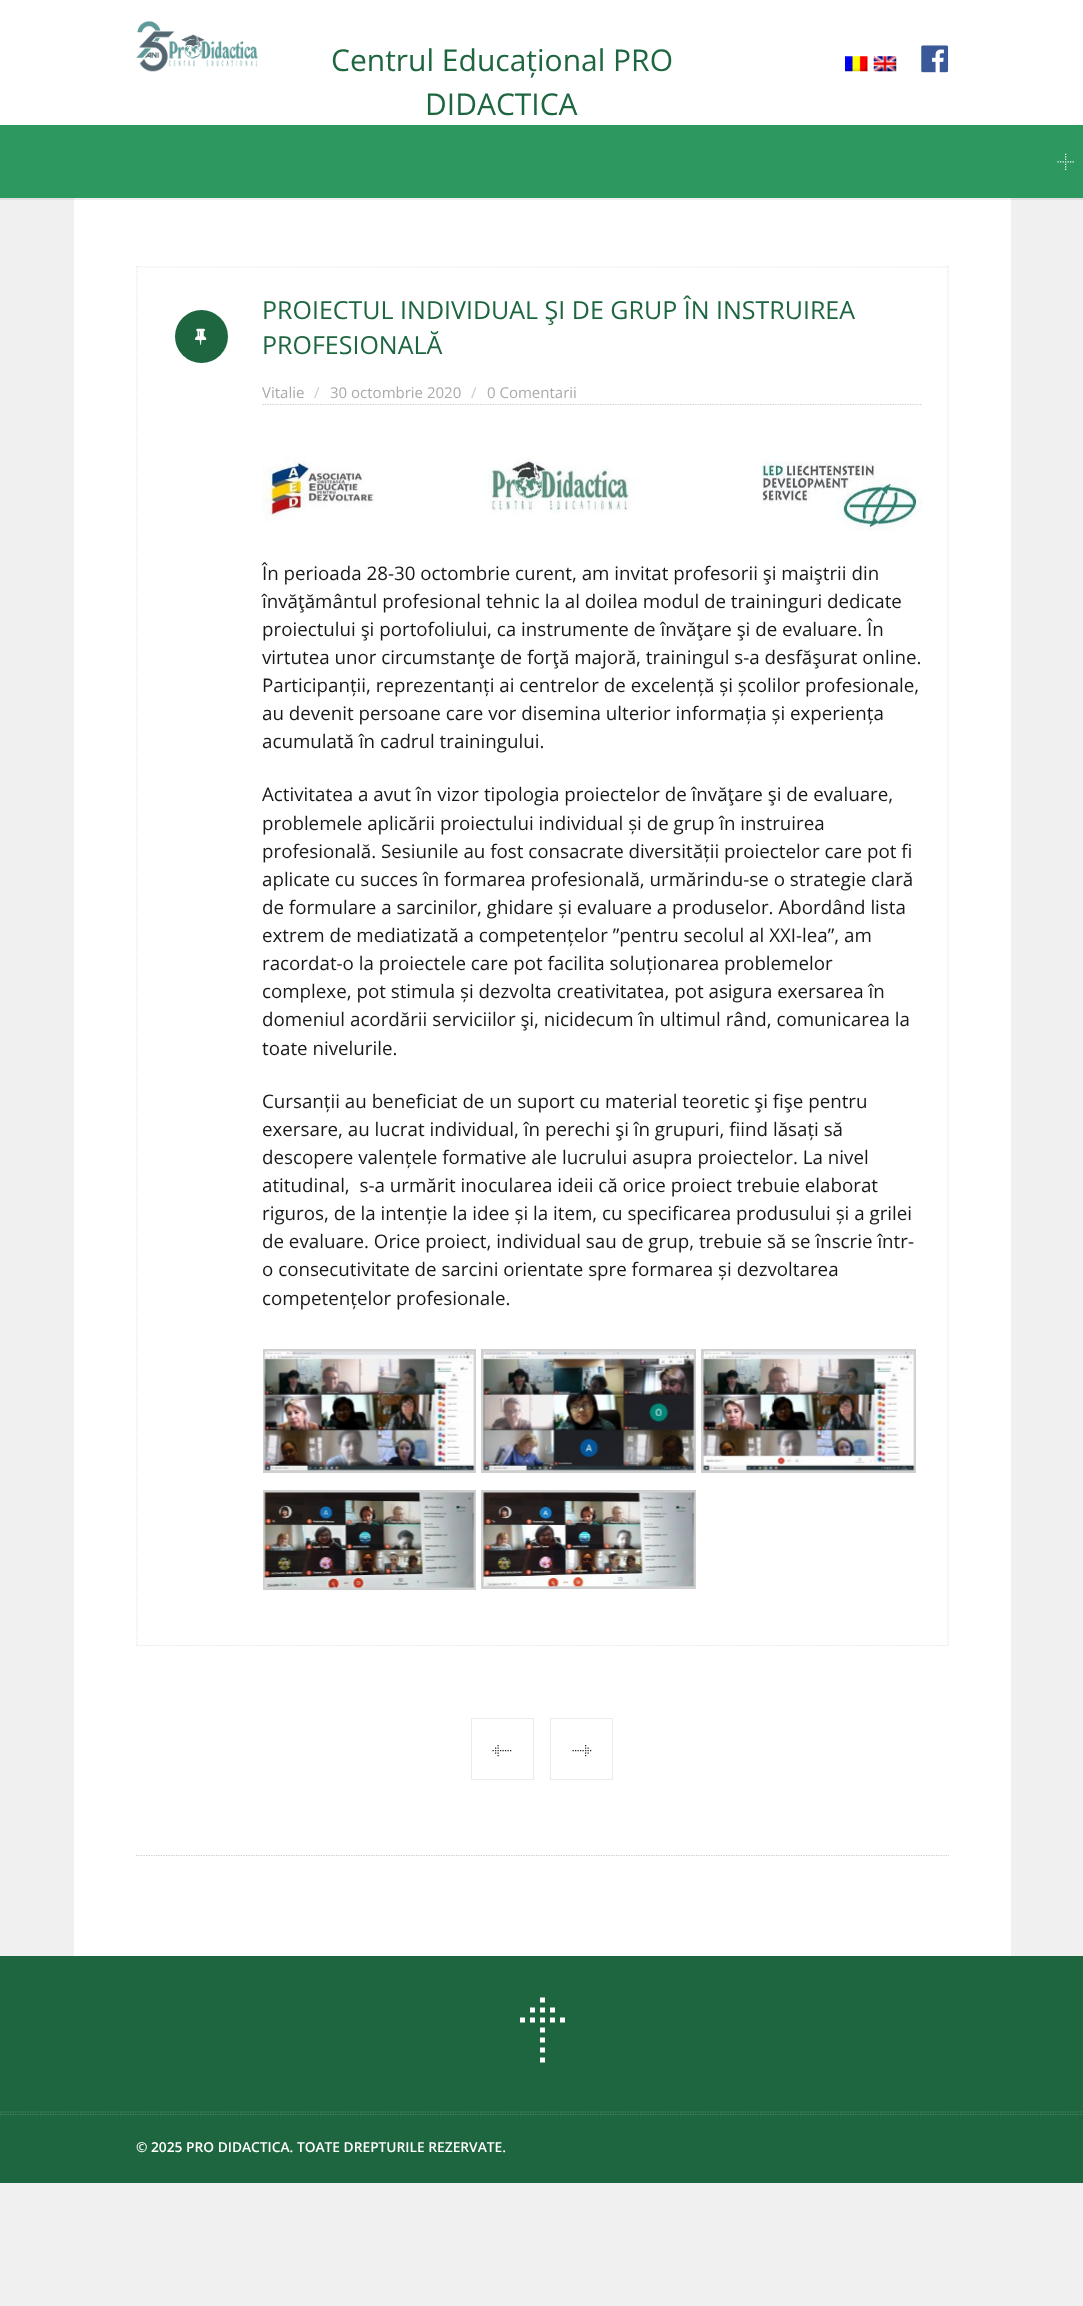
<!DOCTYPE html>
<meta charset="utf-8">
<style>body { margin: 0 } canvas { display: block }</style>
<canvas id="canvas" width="1083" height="2306"></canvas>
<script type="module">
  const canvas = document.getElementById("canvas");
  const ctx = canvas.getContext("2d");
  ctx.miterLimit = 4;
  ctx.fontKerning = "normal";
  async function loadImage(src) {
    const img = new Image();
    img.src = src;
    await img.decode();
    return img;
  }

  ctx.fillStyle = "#f0f0f0";
  ctx.fillRect(0, 0, 1083, 2306);
  ctx.fillStyle = "#ffffff";
  ctx.fillRect(0, 0, 1083, 125);
  ctx.drawImage(await loadImage("img1.png"), 136, 21, 122, 51);
  ctx.font = "30px Open Sans";
  ctx.fillStyle = "#1e6640";
  ctx.fillText("Centrul Educațional PRO", 331, 71);
  ctx.fillText("DIDACTICA", 425, 115);
  ctx.drawImage(await loadImage("img2.png"), 845, 56, 23, 16);
  ctx.drawImage(await loadImage("img3.png"), 873, 56, 24, 16);
  ctx.drawImage(await loadImage("img4.png"), 921, 45, 28, 28);
  ctx.fillStyle = "#2d9960";
  ctx.fillRect(0, 125, 1083, 73);
  ctx.drawImage(await loadImage("img5.png"), 1057, 153, 17, 17);
  ctx.fillStyle = "#ffffff";
  ctx.fillRect(74, 198, 937, 1758);
  ctx.fillStyle = "rgba(0, 0, 0, 0.07)";
  ctx.beginPath();
  ctx.moveTo(0, 198);
  ctx.lineTo(0, 200);
  ctx.lineTo(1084, 200);
  ctx.lineTo(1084, 3);
  ctx.lineTo(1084, 198);
  ctx.closePath();
  ctx.fill();
  ctx.beginPath();
  ctx.moveTo(136, 267);
  ctx.lineTo(949, 267);
  ctx.strokeStyle = "#e5e5e5";
  ctx.lineWidth = 1.2;
  ctx.setLineDash([1.25, 1.25]);
  ctx.stroke();
  ctx.beginPath();
  ctx.moveTo(948, 266);
  ctx.lineTo(948, 1646);
  ctx.stroke();
  ctx.beginPath();
  ctx.moveTo(136, 1645.5);
  ctx.lineTo(949, 1645.5);
  ctx.stroke();
  ctx.beginPath();
  ctx.moveTo(137, 266);
  ctx.lineTo(137, 1646);
  ctx.stroke();
  ctx.fillStyle = "#1e6640";
  ctx.beginPath();
  ctx.arc(201.5, 336.5, 26.5, 0, Math.PI * 2);
  ctx.fill();
  ctx.drawImage(await loadImage("img6.png"), 195, 328, 12, 17);
  ctx.font = "25px Open Sans";
  ctx.fillText("PROIECTUL INDIVIDUAL ŞI DE GRUP ÎN INSTRUIREA", 262, 319);
  ctx.fillText("PROFESIONALĂ", 262, 354);
  ctx.font = "15px Open Sans";
  ctx.fillStyle = "#aaaaaa";
  ctx.fillText("Vitalie", 262, 398);
  ctx.fillStyle = "#cccccc";
  ctx.fillText("/", 314, 398);
  ctx.fillStyle = "#aaaaaa";
  ctx.fillText("30 octombrie 2020", 330, 398);
  ctx.fillStyle = "#cccccc";
  ctx.fillText("/", 471, 398);
  ctx.fillStyle = "#aaaaaa";
  ctx.fillText("0 Comentarii", 487, 398);
  ctx.beginPath();
  ctx.moveTo(262.5, 404.5);
  ctx.lineTo(922.5, 404.5);
  ctx.strokeStyle = "#cccccc";
  ctx.stroke();
  ctx.drawImage(await loadImage("img7.png"), 262, 456, 661, 75);
  ctx.font = "18.75px Open Sans";
  ctx.fillStyle = "#191919";
  ctx.fillText("În perioada 28-30 octombrie curent, am invitat profesorii şi maiştrii din", 262, 580);
  ctx.fillText("învăţământul profesional tehnic la al doilea modul de traininguri dedicate", 262, 608);
  ctx.fillText("proiectului şi portofoliului, ca instrumente de învăţare şi de evaluare. În", 262, 636);
  ctx.fillText("virtutea unor circumstanţe de forţă majoră, trainingul s-a desfăşurat online.", 262, 664);
  ctx.fillText("Participanții, reprezentanți ai centrelor de excelență și școlilor profesionale,", 262, 692);
  ctx.fillText("au devenit persoane care vor disemina ulterior informația și experiența", 262, 720);
  ctx.fillText("acumulată în cadrul trainingului.", 262, 748);
  ctx.fillText("Activitatea a avut în vizor tipologia proiectelor de învăţare şi de evaluare,", 262, 801);
  ctx.fillText("problemele aplicării proiectului individual și de grup în instruirea", 262, 830);
  ctx.fillText("profesională. Sesiunile au fost consacrate diversității proiectelor care pot fi", 262, 858);
  ctx.fillText("aplicate cu succes în formarea profesională, urmărindu-se o strategie clară", 262, 886);
  ctx.fillText("de formulare a sarcinilor, ghidare și evaluare a produselor. Abordând lista", 262, 914);
  ctx.fillText("extrem de mediatizată a competențelor ”pentru secolul al XXI-lea”, am", 262, 942);
  ctx.fillText("racordat-o la proiectele care pot facilita soluționarea problemelor", 262, 970);
  ctx.fillText("complexe, pot stimula și dezvolta creativitatea, pot asigura exersarea în", 262, 998);
  ctx.fillText("domeniul acordării serviciilor şi, nicidecum în ultimul rând, comunicarea la", 262, 1026);
  ctx.fillText("toate nivelurile.", 262, 1055);
  ctx.fillText("Cursanții au beneficiat de un suport cu material teoretic şi fişe pentru", 262, 1108);
  ctx.fillText("exersare, au lucrat individual, în perechi şi în grupuri, fiind lăsați să", 262, 1136);
  ctx.fillText("descopere valențele formative ale lucrului asupra proiectelor. La nivel", 262, 1164);
  ctx.fillText("atitudinal,  s-a urmărit inocularea ideii că orice proiect trebuie elaborat", 262, 1192);
  ctx.fillText("riguros, de la intenție la idee și la item, cu specificarea produsului și a grilei", 262, 1220);
  ctx.fillText("de evaluare. Orice proiect, individual sau de grup, trebuie să se înscrie într-", 262, 1248);
  ctx.fillText("o consecutivitate de sarcini orientate spre formarea și dezvoltarea", 262, 1276);
  ctx.fillText("competențelor profesionale.", 262, 1305);
  ctx.strokeStyle = "#cfcfcf";
  ctx.lineWidth = 3;
  ctx.setLineDash([]);
  ctx.strokeRect(264.5, 1350.5, 210, 121);
  ctx.drawImage(await loadImage("img8.png"), 264, 1350, 211, 121);
  ctx.strokeRect(482.5, 1350.5, 212, 121);
  ctx.drawImage(await loadImage("img9.png"), 483, 1350, 212, 121);
  ctx.strokeRect(702.5, 1350.5, 212, 121);
  ctx.drawImage(await loadImage("img10.png"), 703, 1350, 212, 121);
  ctx.strokeRect(264.5, 1491.5, 210, 97);
  ctx.drawImage(await loadImage("img11.png"), 264, 1492, 211, 96);
  ctx.strokeRect(482.5, 1491.5, 212, 96);
  ctx.drawImage(await loadImage("img12.png"), 483, 1492, 212, 95);
  ctx.strokeStyle = "#ebebeb";
  ctx.lineWidth = 1;
  ctx.strokeRect(471.5, 1718.5, 62, 61);
  ctx.drawImage(await loadImage("img13.png"), 492, 1745, 20, 12);
  ctx.strokeRect(550.5, 1718.5, 62, 61);
  ctx.drawImage(await loadImage("img14.png"), 572, 1745, 20, 12);
  ctx.beginPath();
  ctx.moveTo(136, 1855.5);
  ctx.lineTo(949, 1855.5);
  ctx.strokeStyle = "#cccccc";
  ctx.lineWidth = 1.2;
  ctx.setLineDash([1.25, 1.25]);
  ctx.stroke();
  ctx.fillStyle = "#1e6640";
  ctx.fillRect(0, 1956, 1083, 227);
  ctx.drawImage(await loadImage("img15.png"), 520, 1997, 45, 66);
  ctx.beginPath();
  ctx.moveTo(0, 2112);
  ctx.lineTo(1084, 2112);
  ctx.strokeStyle = "#4b8566";
  ctx.stroke();
  ctx.beginPath();
  ctx.moveTo(0, 2114.5);
  ctx.lineTo(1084, 2114.5);
  ctx.stroke();
  ctx.font = "600 13.75px Open Sans";
  ctx.fillStyle = "#ffffff";
  ctx.fillText("© 2025 PRO DIDACTICA. TOATE DREPTURILE REZERVATE.", 136, 2152);
</script>
